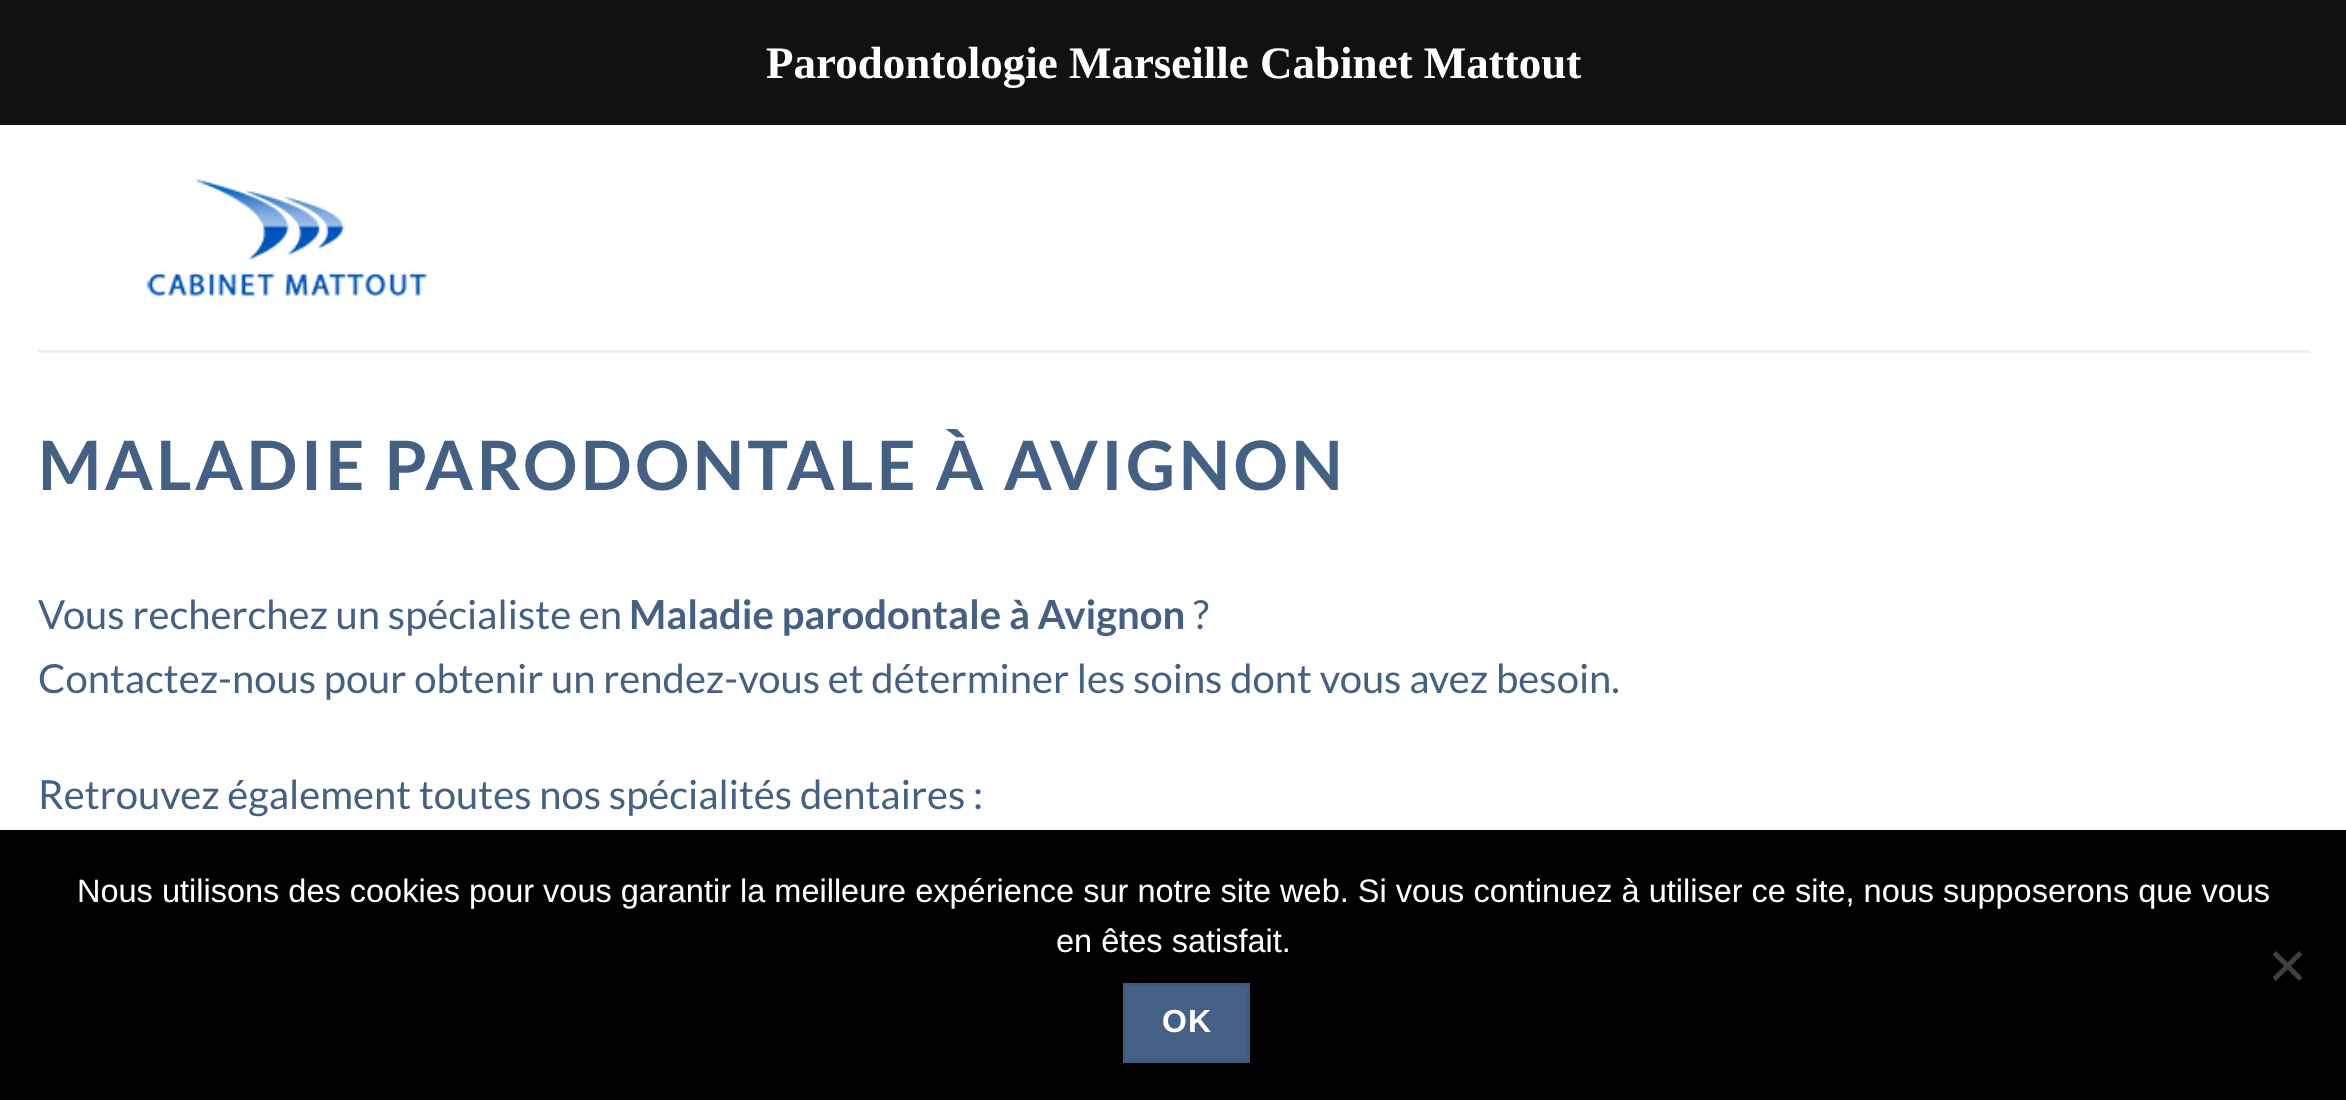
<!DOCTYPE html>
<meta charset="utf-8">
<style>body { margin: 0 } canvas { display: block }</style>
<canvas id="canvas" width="2346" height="1100"></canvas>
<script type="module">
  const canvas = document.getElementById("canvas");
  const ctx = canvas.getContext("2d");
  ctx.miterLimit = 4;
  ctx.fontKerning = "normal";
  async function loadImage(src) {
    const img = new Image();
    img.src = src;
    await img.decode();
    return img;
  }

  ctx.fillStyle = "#ffffff";
  ctx.fillRect(0, 0, 2346, 1100);
  ctx.fillStyle = "#111111";
  ctx.fillRect(0, 0, 2346, 125);
  ctx.font = "bold 45px Liberation Serif";
  ctx.fillStyle = "#ffffff";
  ctx.fillText("Parodontologie Marseille Cabinet Mattout", 766, 78);
  ctx.drawImage(await loadImage("img1.png"), 146, 179, 281, 118);
  ctx.fillStyle = "#eceff3";
  ctx.fillRect(38, 350, 2272, 3);
  ctx.letterSpacing = "3.4px";
  ctx.font = "bold 68px Lato";
  ctx.fillStyle = "#446084";
  ctx.fillText("MALADIE PARODONTALE À AVIGNON", 38, 490);
  ctx.letterSpacing = "0px";
  ctx.font = "40px Lato";
  ctx.fillText("Vous recherchez un spécialiste en", 38, 629);
  ctx.font = "bold 40px Lato";
  ctx.fillText("Maladie parodontale à Avignon", 629, 629);
  ctx.font = "40px Lato";
  ctx.fillText("?", 1193, 629);
  ctx.fillText("Contactez-nous pour obtenir un rendez-vous et déterminer les soins dont vous avez besoin.", 38, 693);
  ctx.fillText("Retrouvez également toutes nos spécialités dentaires :", 38, 809);
  ctx.fillStyle = "#000000";
  ctx.fillRect(0, 830, 2346, 270);
  ctx.font = "32.5px Liberation Sans";
  ctx.fillStyle = "#ffffff";
  ctx.fillText("Nous utilisons des cookies pour vous garantir la meilleure expérience sur notre site web. Si vous continuez à utiliser ce site, nous supposerons que vous", 77, 902);
  ctx.fillText("en êtes satisfait.", 1056, 952);
  ctx.fillStyle = "#404040";
  ctx.beginPath();
  ctx.moveTo(2299, 951);
  ctx.lineTo(2302.5, 954.5);
  ctx.lineTo(2276, 981);
  ctx.lineTo(2272.5, 977.5);
  ctx.closePath();
  ctx.fill();
  ctx.beginPath();
  ctx.moveTo(2272.5, 954.5);
  ctx.lineTo(2276, 951);
  ctx.lineTo(2302.5, 977.5);
  ctx.lineTo(2299, 981);
  ctx.closePath();
  ctx.fill();
  ctx.fillStyle = "#446084";
  ctx.beginPath();
  ctx.rect(1124.5, 984.5, 124, 77);
  ctx.fill();
  ctx.strokeStyle = "#415b7d";
  ctx.lineWidth = 3;
  ctx.stroke();
  ctx.letterSpacing = "1px";
  ctx.font = "bold 32px Liberation Sans";
  ctx.fillStyle = "#ffffff";
  ctx.fillText("OK", 1162, 1032);
</script>
